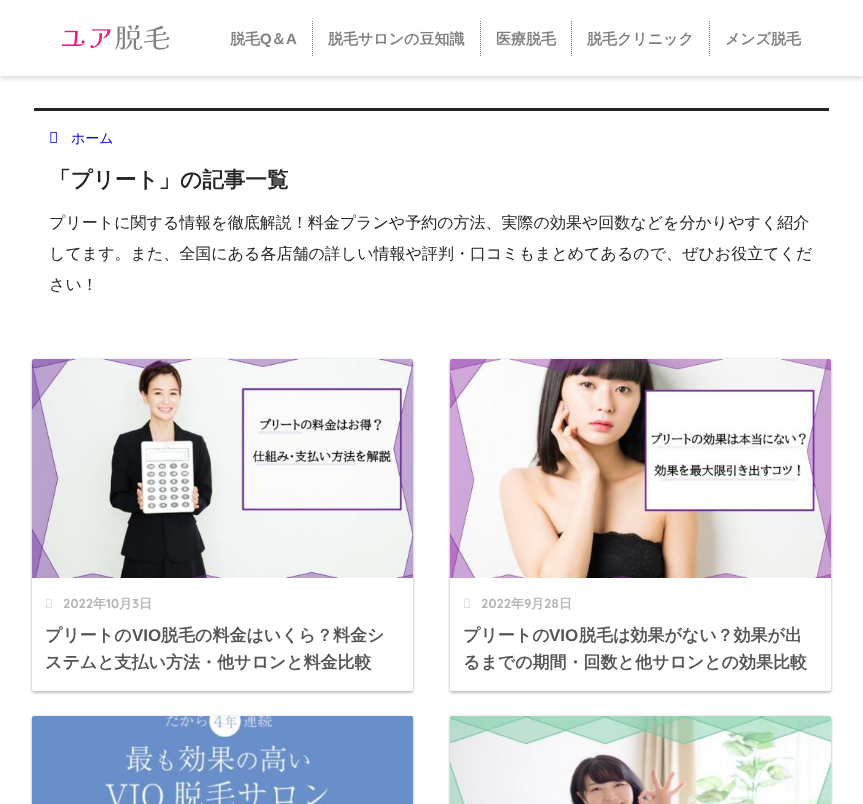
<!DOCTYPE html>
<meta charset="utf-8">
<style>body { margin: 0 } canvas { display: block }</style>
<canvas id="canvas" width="863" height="804"></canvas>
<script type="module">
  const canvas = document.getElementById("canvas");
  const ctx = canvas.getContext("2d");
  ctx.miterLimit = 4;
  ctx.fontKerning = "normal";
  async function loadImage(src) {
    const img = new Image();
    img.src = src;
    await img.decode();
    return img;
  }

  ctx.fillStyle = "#ffffff";
  ctx.fillRect(0, 0, 863, 804);
  ctx.save();
  ctx.beginPath();
  ctx.rect(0, 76, 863, 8);
  ctx.clip();
  ctx.fillStyle = "#dfdfdf";
  ctx.filter = "blur(2.5px)";
  ctx.beginPath();
  ctx.rect(0, 3, 863, 76);
  ctx.fill();
  ctx.filter = "none";
  ctx.restore();
  ctx.drawImage(await loadImage("img1.png"), 62, 25, 108, 25);
  ctx.beginPath();
  ctx.moveTo(312.5, 21);
  ctx.lineTo(312.5, 56);
  ctx.strokeStyle = "#7f7f7f";
  ctx.setLineDash([1, 1]);
  ctx.stroke();
  ctx.font = "bold 15px WenQuanYi Zen Hei";
  ctx.fillStyle = "#7f7f7f";
  ctx.fillText("脱毛", 230, 44);
  ctx.font = "bold 15px Liberation Sans";
  ctx.fillText("Q", 260, 44);
  ctx.font = "bold 15px WenQuanYi Zen Hei";
  ctx.fillText("＆", 271, 44);
  ctx.font = "bold 15px Liberation Sans";
  ctx.fillText("A", 286, 44);
  ctx.beginPath();
  ctx.moveTo(480.5, 21);
  ctx.lineTo(480.5, 56);
  ctx.stroke();
  ctx.font = "bold 15px WenQuanYi Zen Hei";
  ctx.fillText("脱毛サロンの豆知識", 328, 44);
  ctx.beginPath();
  ctx.moveTo(571.5, 21);
  ctx.lineTo(571.5, 56);
  ctx.stroke();
  ctx.fillText("医療脱毛", 496, 44);
  ctx.beginPath();
  ctx.moveTo(709.5, 21);
  ctx.lineTo(709.5, 56);
  ctx.stroke();
  ctx.fillText("脱毛クリニック", 587, 44);
  ctx.fillText("メンズ脱毛", 725, 44);
  ctx.fillStyle = "#252525";
  ctx.fillRect(34, 108, 795, 3);
  ctx.drawImage(await loadImage("img2.png"), 50, 132, 7, 11);
  ctx.font = "500 14px WenQuanYi Zen Hei";
  ctx.fillStyle = "#0000ee";
  ctx.fillText("ホーム", 71, 143);
  ctx.font = "bold 21.6px WenQuanYi Zen Hei";
  ctx.fillStyle = "#252525";
  ctx.fillText("「プリート」の記事一覧", 49, 187);
  ctx.font = "500 16px WenQuanYi Zen Hei";
  ctx.fillText("プリートに関する情報を徹底解説！料金プランや予約の方法、実際の効果や回数などを分かりやすく紹介", 49, 228);
  ctx.fillText("してます。また、全国にある各店舗の詳しい情報や評判・口コミもまとめてあるので、ぜひお役立てくだ", 49, 259);
  ctx.fillText("さい！", 49, 290);
  ctx.fillStyle = "rgba(0, 0, 0, 0.22)";
  ctx.filter = "blur(1.5px)";
  ctx.beginPath();
  ctx.roundRect(32, 361, 381, 332, 2);
  ctx.fill();
  ctx.filter = "none";
  ctx.fillStyle = "rgba(0, 0, 0, 0.12)";
  ctx.filter = "blur(1.5px)";
  ctx.beginPath();
  ctx.roundRect(32, 359, 381, 332, 2);
  ctx.fill();
  ctx.filter = "none";
  ctx.fillStyle = "#ffffff";
  ctx.beginPath();
  ctx.roundRect(32, 359, 381, 332, 2);
  ctx.fill();
  ctx.drawImage(await loadImage("img3.png"), 32, 359, 381, 219);
  ctx.drawImage(await loadImage("img4.png"), 46, 598, 6, 10);
  ctx.font = "bold 13px Quicksand";
  ctx.fillStyle = "#b5b5b5";
  ctx.fillText("2022", 63, 608);
  ctx.font = "bold 13px WenQuanYi Zen Hei";
  ctx.fillText("年", 93, 608);
  ctx.font = "bold 13px Quicksand";
  ctx.fillText("10", 106, 608);
  ctx.font = "bold 13px WenQuanYi Zen Hei";
  ctx.fillText("月", 119, 608);
  ctx.font = "bold 13px Quicksand";
  ctx.fillText("3", 132, 608);
  ctx.font = "bold 13px WenQuanYi Zen Hei";
  ctx.fillText("日", 139, 608);
  ctx.font = "bold 17px WenQuanYi Zen Hei";
  ctx.fillStyle = "#555555";
  ctx.fillText("プリートの", 45, 641);
  ctx.font = "bold 17px Liberation Sans";
  ctx.fillText("VIO", 132, 641);
  ctx.font = "bold 17px WenQuanYi Zen Hei";
  ctx.fillText("脱毛の料金はいくら？料金シ", 161, 641);
  ctx.fillText("ステムと支払い方法・他サロンと料金比較", 45, 668);
  ctx.fillStyle = "rgba(0, 0, 0, 0.22)";
  ctx.filter = "blur(1.5px)";
  ctx.beginPath();
  ctx.roundRect(450, 361, 381, 332, 2);
  ctx.fill();
  ctx.filter = "none";
  ctx.fillStyle = "rgba(0, 0, 0, 0.12)";
  ctx.filter = "blur(1.5px)";
  ctx.beginPath();
  ctx.roundRect(450, 359, 381, 332, 2);
  ctx.fill();
  ctx.filter = "none";
  ctx.fillStyle = "#ffffff";
  ctx.beginPath();
  ctx.roundRect(450, 359, 381, 332, 2);
  ctx.fill();
  ctx.drawImage(await loadImage("img5.png"), 450, 359, 381, 219);
  ctx.drawImage(await loadImage("img4.png"), 464, 598, 6, 10);
  ctx.font = "bold 13px Quicksand";
  ctx.fillStyle = "#b5b5b5";
  ctx.fillText("2022", 481, 608);
  ctx.font = "bold 13px WenQuanYi Zen Hei";
  ctx.fillText("年", 511, 608);
  ctx.font = "bold 13px Quicksand";
  ctx.fillText("9", 524, 608);
  ctx.font = "bold 13px WenQuanYi Zen Hei";
  ctx.fillText("月", 531, 608);
  ctx.font = "bold 13px Quicksand";
  ctx.fillText("28", 544, 608);
  ctx.font = "bold 13px WenQuanYi Zen Hei";
  ctx.fillText("日", 559, 608);
  ctx.font = "bold 17px WenQuanYi Zen Hei";
  ctx.fillStyle = "#555555";
  ctx.fillText("プリートの", 463, 641);
  ctx.font = "bold 17px Liberation Sans";
  ctx.fillText("VIO", 549, 641);
  ctx.font = "bold 17px WenQuanYi Zen Hei";
  ctx.fillText("脱毛は効果がない？効果が出", 579, 641);
  ctx.fillText("るまでの期間・回数と他サロンとの効果比較", 463, 668);
  ctx.fillStyle = "rgba(0, 0, 0, 0.22)";
  ctx.filter = "blur(1.5px)";
  ctx.beginPath();
  ctx.roundRect(32, 718, 381, 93, 2);
  ctx.fill();
  ctx.filter = "none";
  ctx.fillStyle = "rgba(0, 0, 0, 0.12)";
  ctx.filter = "blur(1.5px)";
  ctx.beginPath();
  ctx.roundRect(32, 716, 381, 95, 2);
  ctx.fill();
  ctx.filter = "none";
  ctx.drawImage(await loadImage("img6.png"), 32, 716, 381, 88);
  ctx.fillStyle = "rgba(0, 0, 0, 0.22)";
  ctx.filter = "blur(1.5px)";
  ctx.beginPath();
  ctx.roundRect(450, 718, 381, 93, 2);
  ctx.fill();
  ctx.filter = "none";
  ctx.fillStyle = "rgba(0, 0, 0, 0.12)";
  ctx.filter = "blur(1.5px)";
  ctx.beginPath();
  ctx.roundRect(450, 716, 381, 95, 2);
  ctx.fill();
  ctx.filter = "none";
  ctx.drawImage(await loadImage("img7.png"), 450, 716, 381, 88);
</script>
